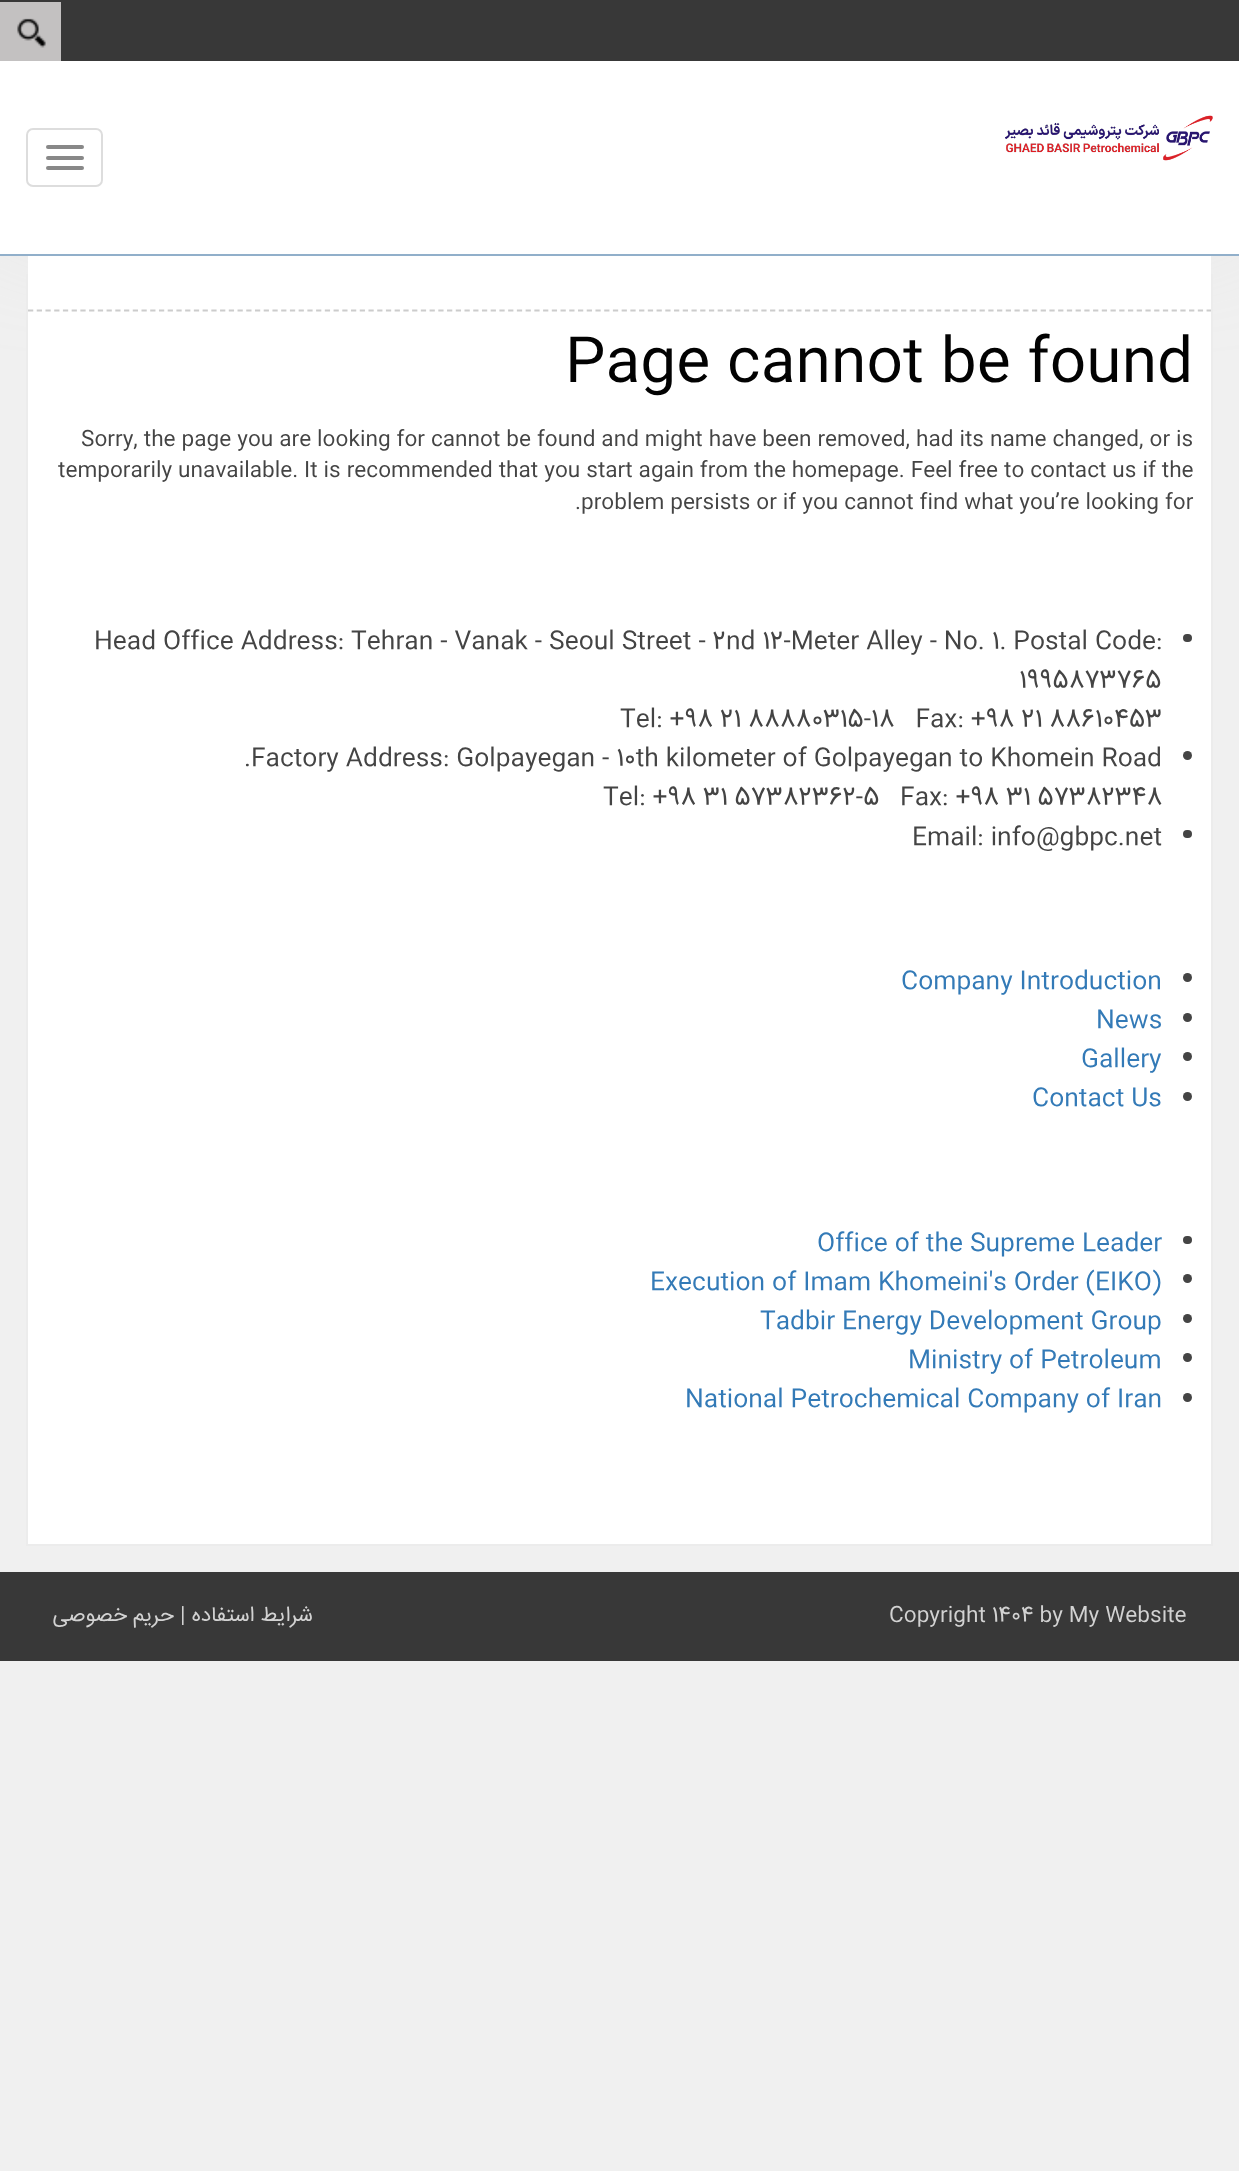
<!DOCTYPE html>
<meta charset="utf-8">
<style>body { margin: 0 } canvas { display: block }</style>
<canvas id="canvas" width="1239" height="2171"></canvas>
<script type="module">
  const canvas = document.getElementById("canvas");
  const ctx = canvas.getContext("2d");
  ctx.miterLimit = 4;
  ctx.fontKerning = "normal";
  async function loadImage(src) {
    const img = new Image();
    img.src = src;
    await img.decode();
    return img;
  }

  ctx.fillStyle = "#f0f0f0";
  ctx.fillRect(0, 0, 1239, 2171);
  ctx.fillStyle = "#cacaca";
  ctx.filter = "blur(87.5px)";
  ctx.beginPath();
  ctx.rect(2, 88, 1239, 61);
  ctx.fill();
  ctx.filter = "none";
  ctx.fillStyle = "#383838";
  ctx.fillRect(0, 0, 1239, 61);
  ctx.fillStyle = "#c3c1c1";
  ctx.fillRect(0, 2, 61, 59);
  ctx.drawImage(await loadImage("img1.png"), 17, 18, 29, 30);
  ctx.fillStyle = "#ffffff";
  ctx.fillRect(0, 61, 1239, 193);
  ctx.fillStyle = "#91afca";
  ctx.fillRect(0, 254, 1239, 2);
  ctx.beginPath();
  ctx.roundRect(27, 129, 75, 57, 6);
  ctx.strokeStyle = "#dddddd";
  ctx.lineWidth = 2;
  ctx.stroke();
  ctx.fillStyle = "#888888";
  ctx.beginPath();
  ctx.roundRect(46, 145, 38, 4, 2);
  ctx.fill();
  ctx.beginPath();
  ctx.roundRect(46, 156, 38, 4, 2);
  ctx.fill();
  ctx.beginPath();
  ctx.roundRect(46, 166, 38, 4, 2);
  ctx.fill();
  ctx.drawImage(await loadImage("img2.png"), 1005, 115, 208, 46);
  ctx.fillStyle = "#ffffff";
  ctx.fillRect(28, 256, 1183, 1288);
  ctx.fillStyle = "#ececec";
  ctx.fillRect(1211, 274, 2, 1271);
  ctx.fillRect(26, 1544, 1187, 2);
  ctx.fillRect(26, 274, 2, 1271);
  ctx.beginPath();
  ctx.moveTo(28, 310.5);
  ctx.lineTo(1211, 310.5);
  ctx.strokeStyle = "#cccccc";
  ctx.lineWidth = 1.8;
  ctx.setLineDash([5.25, 3.48]);
  ctx.stroke();
  ctx.font = "59.5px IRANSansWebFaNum";
  ctx.fillStyle = "#020202";
  ctx.fillText("Page cannot be found", 565, 379);
  ctx.font = "21px IRANSansWebFaNum";
  ctx.fillStyle = "#444444";
  ctx.fillText("Sorry, the page you are looking for cannot be found and might have been removed, had its name changed, or is", 81, 445);
  ctx.fillText("temporarily unavailable. It is recommended that you start again from the homepage. Feel free to contact us if the", 58, 476);
  ctx.fillText(".problem persists or if you cannot find what you’re looking for", 575, 508);
  ctx.font = "24.5px IRANSansWebFaNum";
  ctx.fillText("Head Office Address: Tehran - Vanak - Seoul Street - 2nd 12-Meter Alley - No. 1. Postal Code:", 94, 648);
  ctx.beginPath();
  ctx.roundRect(1183, 634, 9, 8, 4);
  ctx.fill();
  ctx.fillText("1995873765", 1019, 687);
  ctx.fillText("Tel: +98 21 88880315-18   Fax: +98 21 88610453", 620, 726);
  ctx.fillText(".Factory Address: Golpayegan - 10th kilometer of Golpayegan to Khomein Road", 244, 765);
  ctx.beginPath();
  ctx.arc(1187.5, 755.5, 4.5, 0, Math.PI * 2);
  ctx.fill();
  ctx.fillText("Tel: +98 31 57382362-5   Fax: +98 31 57382348", 603, 804);
  ctx.fillText("Email: info@gbpc.net", 912, 844);
  ctx.beginPath();
  ctx.roundRect(1183, 830, 9, 8, 4);
  ctx.fill();
  ctx.fillStyle = "#337ab7";
  ctx.fillText("Company Introduction", 901, 988);
  ctx.fillStyle = "#444444";
  ctx.beginPath();
  ctx.arc(1187.5, 977.5, 4.5, 0, Math.PI * 2);
  ctx.fill();
  ctx.fillStyle = "#337ab7";
  ctx.fillText("News", 1096, 1027);
  ctx.fillStyle = "#444444";
  ctx.beginPath();
  ctx.arc(1187.5, 1017.5, 4.5, 0, Math.PI * 2);
  ctx.fill();
  ctx.fillStyle = "#337ab7";
  ctx.fillText("Gallery", 1081, 1066);
  ctx.fillStyle = "#444444";
  ctx.beginPath();
  ctx.arc(1187.5, 1056.5, 4.5, 0, Math.PI * 2);
  ctx.fill();
  ctx.fillStyle = "#337ab7";
  ctx.fillText("Contact Us", 1032, 1105);
  ctx.fillStyle = "#444444";
  ctx.beginPath();
  ctx.arc(1187.5, 1096.5, 4.5, 0, Math.PI * 2);
  ctx.fill();
  ctx.fillStyle = "#337ab7";
  ctx.fillText("Office of the Supreme Leader", 817, 1250);
  ctx.fillStyle = "#444444";
  ctx.beginPath();
  ctx.roundRect(1183, 1236, 9, 8, 4);
  ctx.fill();
  ctx.fillStyle = "#337ab7";
  ctx.fillText("Execution of Imam Khomeini's Order (EIKO)", 650, 1289);
  ctx.fillStyle = "#444444";
  ctx.beginPath();
  ctx.arc(1187.5, 1278.5, 4.5, 0, Math.PI * 2);
  ctx.fill();
  ctx.fillStyle = "#337ab7";
  ctx.fillText("Tadbir Energy Development Group", 760, 1328);
  ctx.fillStyle = "#444444";
  ctx.beginPath();
  ctx.arc(1187.5, 1318.5, 4.5, 0, Math.PI * 2);
  ctx.fill();
  ctx.fillStyle = "#337ab7";
  ctx.fillText("Ministry of Petroleum", 908, 1367);
  ctx.fillStyle = "#444444";
  ctx.beginPath();
  ctx.arc(1187.5, 1357.5, 4.5, 0, Math.PI * 2);
  ctx.fill();
  ctx.fillStyle = "#337ab7";
  ctx.fillText("National Petrochemical Company of Iran", 685, 1406);
  ctx.fillStyle = "#444444";
  ctx.beginPath();
  ctx.arc(1187.5, 1397.5, 4.5, 0, Math.PI * 2);
  ctx.fill();
  ctx.fillStyle = "#383838";
  ctx.fillRect(0, 1572, 1239, 89);
  ctx.direction = "rtl";
  ctx.font = "21px IRANSansWebFaNum";
  ctx.fillStyle = "#d2d2d2";
  ctx.fillText("حریم خصوصی", 174, 1621);
  ctx.direction = "ltr";
  ctx.fillText("|", 180, 1621);
  ctx.direction = "rtl";
  ctx.fillText("شرایط استفاده", 313, 1621);
  ctx.direction = "ltr";
  ctx.fillText("Copyright 1404 by My Website", 889, 1621);
</script>
